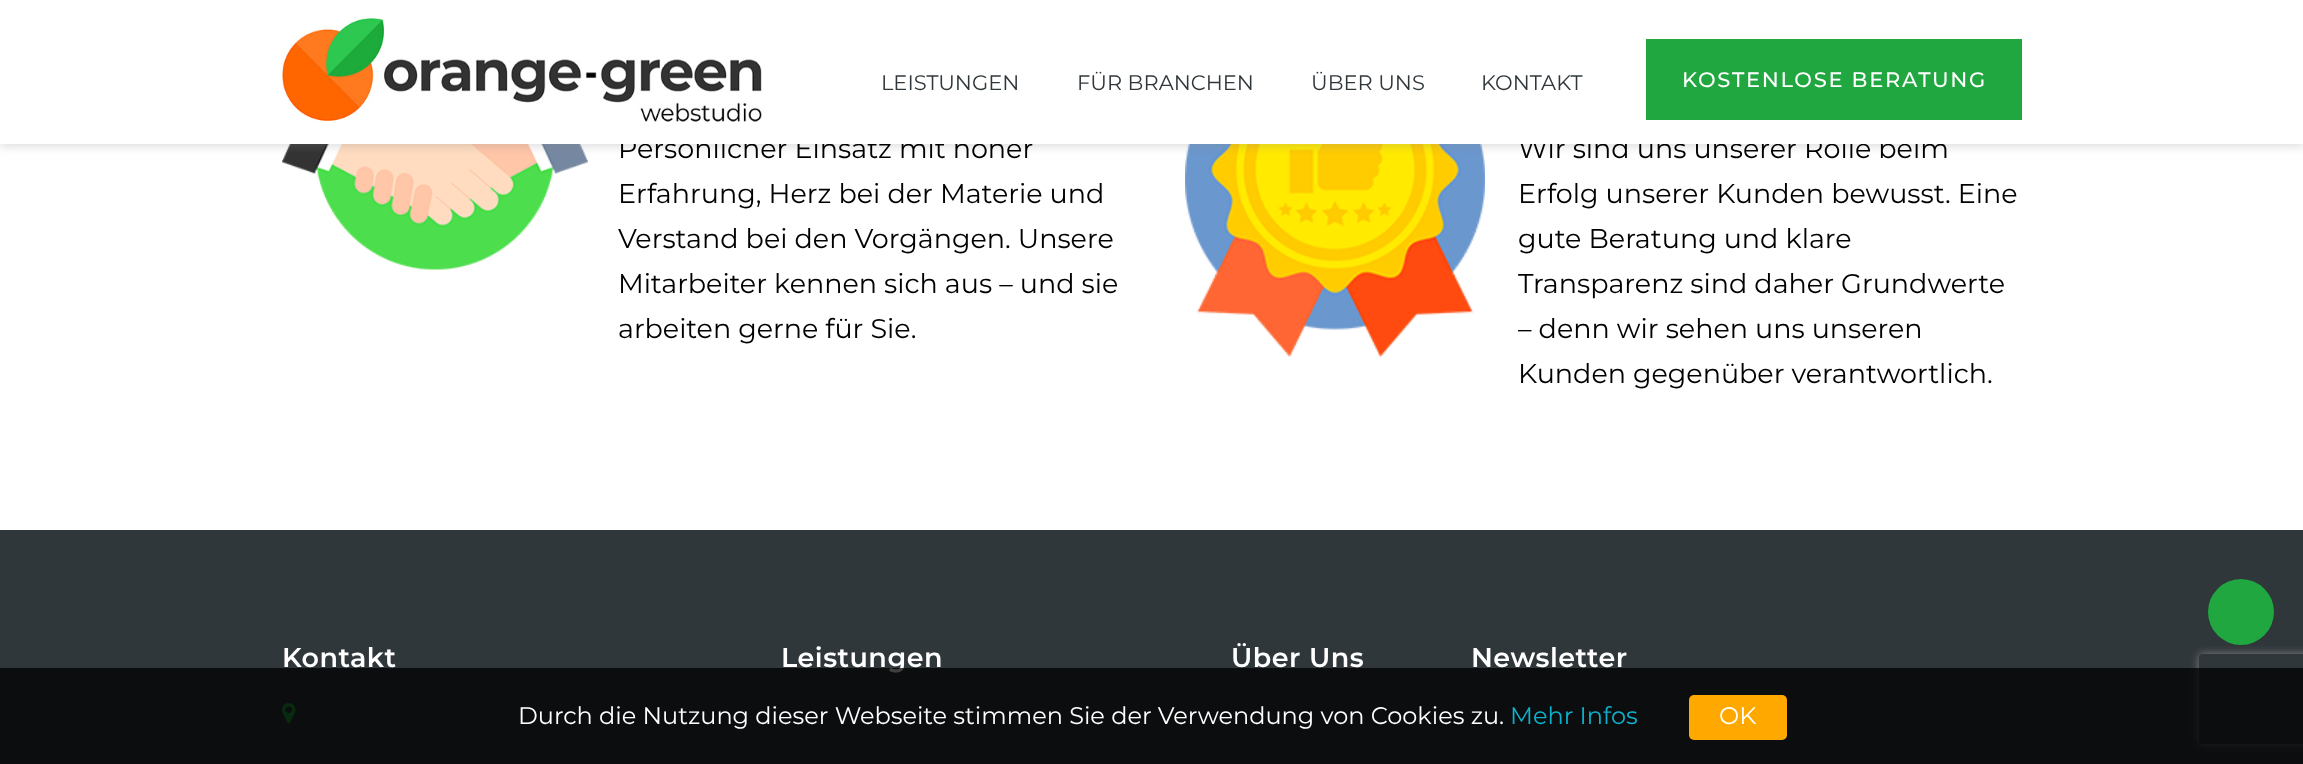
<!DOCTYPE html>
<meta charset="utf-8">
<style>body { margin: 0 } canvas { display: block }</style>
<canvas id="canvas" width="2303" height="764"></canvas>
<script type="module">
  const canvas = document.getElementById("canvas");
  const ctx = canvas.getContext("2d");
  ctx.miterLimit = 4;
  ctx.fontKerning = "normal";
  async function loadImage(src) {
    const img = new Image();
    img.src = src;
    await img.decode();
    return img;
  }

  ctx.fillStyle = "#ffffff";
  ctx.fillRect(0, 0, 2303, 764);
  ctx.drawImage(await loadImage("img2.png"), 282, 144, 306, 126);
  ctx.drawImage(await loadImage("img3.png"), 1185, 144, 300, 213);
  ctx.fillStyle = "rgba(136, 136, 136, 0.26)";
  ctx.filter = "blur(4.5px)";
  ctx.beginPath();
  ctx.rect(0, 3, 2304, 144);
  ctx.fill();
  ctx.filter = "none";
  ctx.font = "27px Montserrat";
  ctx.fillStyle = "#000000";
  ctx.fillText("Persönlicher Einsatz mit hoher", 618, 158);
  ctx.fillText("Wir sind uns unserer Rolle beim", 1518, 158);
  ctx.fillStyle = "#ffffff";
  ctx.fillRect(0, 0, 2303, 144);
  ctx.drawImage(await loadImage("img1.png"), 282, 18, 480, 104);
  ctx.font = "21px Montserrat";
  ctx.fillStyle = "#30373b";
  ctx.fillText("LEISTUNGEN", 881, 90);
  ctx.fillText("FÜR BRANCHEN", 1077, 90);
  ctx.fillText("ÜBER UNS", 1311, 90);
  ctx.fillText("KONTAKT", 1481, 90);
  ctx.fillStyle = "#21a73f";
  ctx.fillRect(1646, 39, 376, 81);
  ctx.letterSpacing = "1.7px";
  ctx.font = "500 21px Montserrat";
  ctx.fillStyle = "#ffffff";
  ctx.fillText("KOSTENLOSE BERATUNG", 1682, 87);
  ctx.letterSpacing = "0px";
  ctx.font = "27px Montserrat";
  ctx.fillStyle = "#000000";
  ctx.fillText("Erfahrung, Herz bei der Materie und", 618, 203);
  ctx.fillText("Verstand bei den Vorgängen. Unsere", 618, 248);
  ctx.fillText("Mitarbeiter kennen sich aus – und sie", 618, 293);
  ctx.fillText("arbeiten gerne für Sie.", 618, 338);
  ctx.fillText("Erfolg unserer Kunden bewusst. Eine", 1518, 203);
  ctx.fillText("gute Beratung und klare", 1518, 248);
  ctx.fillText("Transparenz sind daher Grundwerte", 1518, 293);
  ctx.fillText("– denn wir sehen uns unseren", 1518, 338);
  ctx.fillText("Kunden gegenüber verantwortlich.", 1518, 383);
  ctx.fillStyle = "#30373b";
  ctx.fillRect(0, 530, 2303, 234);
  ctx.save();
  ctx.beginPath();
  ctx.moveTo(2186, 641);
  ctx.lineTo(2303, 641);
  ctx.lineTo(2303, 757);
  ctx.lineTo(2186, 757);
  ctx.closePath();
  ctx.moveTo(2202, 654);
  ctx.lineTo(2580, 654);
  ctx.bezierCurveTo(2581.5, 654, 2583, 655.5, 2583, 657);
  ctx.lineTo(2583, 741);
  ctx.bezierCurveTo(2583, 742.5, 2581.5, 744, 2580, 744);
  ctx.lineTo(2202, 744);
  ctx.bezierCurveTo(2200.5, 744, 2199, 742.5, 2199, 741);
  ctx.lineTo(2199, 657);
  ctx.bezierCurveTo(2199, 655.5, 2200.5, 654, 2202, 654);
  ctx.closePath();
  ctx.clip("evenodd");
  ctx.fillStyle = "#808080";
  ctx.filter = "blur(4px)";
  ctx.beginPath();
  ctx.roundRect(2199, 654, 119, 90, 3);
  ctx.fill();
  ctx.filter = "none";
  ctx.restore();
  ctx.fillStyle = "#21a73f";
  ctx.beginPath();
  ctx.arc(2241, 612, 33, 0, Math.PI * 2);
  ctx.fill();
  ctx.letterSpacing = "0.5px";
  ctx.font = "600 27px Montserrat";
  ctx.fillStyle = "#ffffff";
  ctx.fillText("Kontakt", 282, 667);
  ctx.drawImage(await loadImage("img4.png"), 282, 703, 14, 21);
  ctx.fillText("Leistungen", 781, 667);
  ctx.fillText("Über Uns", 1231, 667);
  ctx.fillText("Newsletter", 1471, 667);
  ctx.fillStyle = "rgba(0, 0, 0, 0.75)";
  ctx.fillRect(0, 668, 2303, 96);
  ctx.letterSpacing = "0px";
  ctx.font = "24px Montserrat";
  ctx.fillStyle = "#ffffff";
  ctx.fillText("Durch die Nutzung dieser Webseite stimmen Sie der Verwendung von Cookies zu.", 518, 724);
  ctx.fillStyle = "#0db1cd";
  ctx.fillText("Mehr Infos", 1510, 724);
  ctx.fillStyle = "#ffa800";
  ctx.beginPath();
  ctx.roundRect(1689, 695, 98, 45, 5);
  ctx.fill();
  ctx.fillStyle = "#ffffff";
  ctx.fillText("OK", 1719, 724);
</script>
